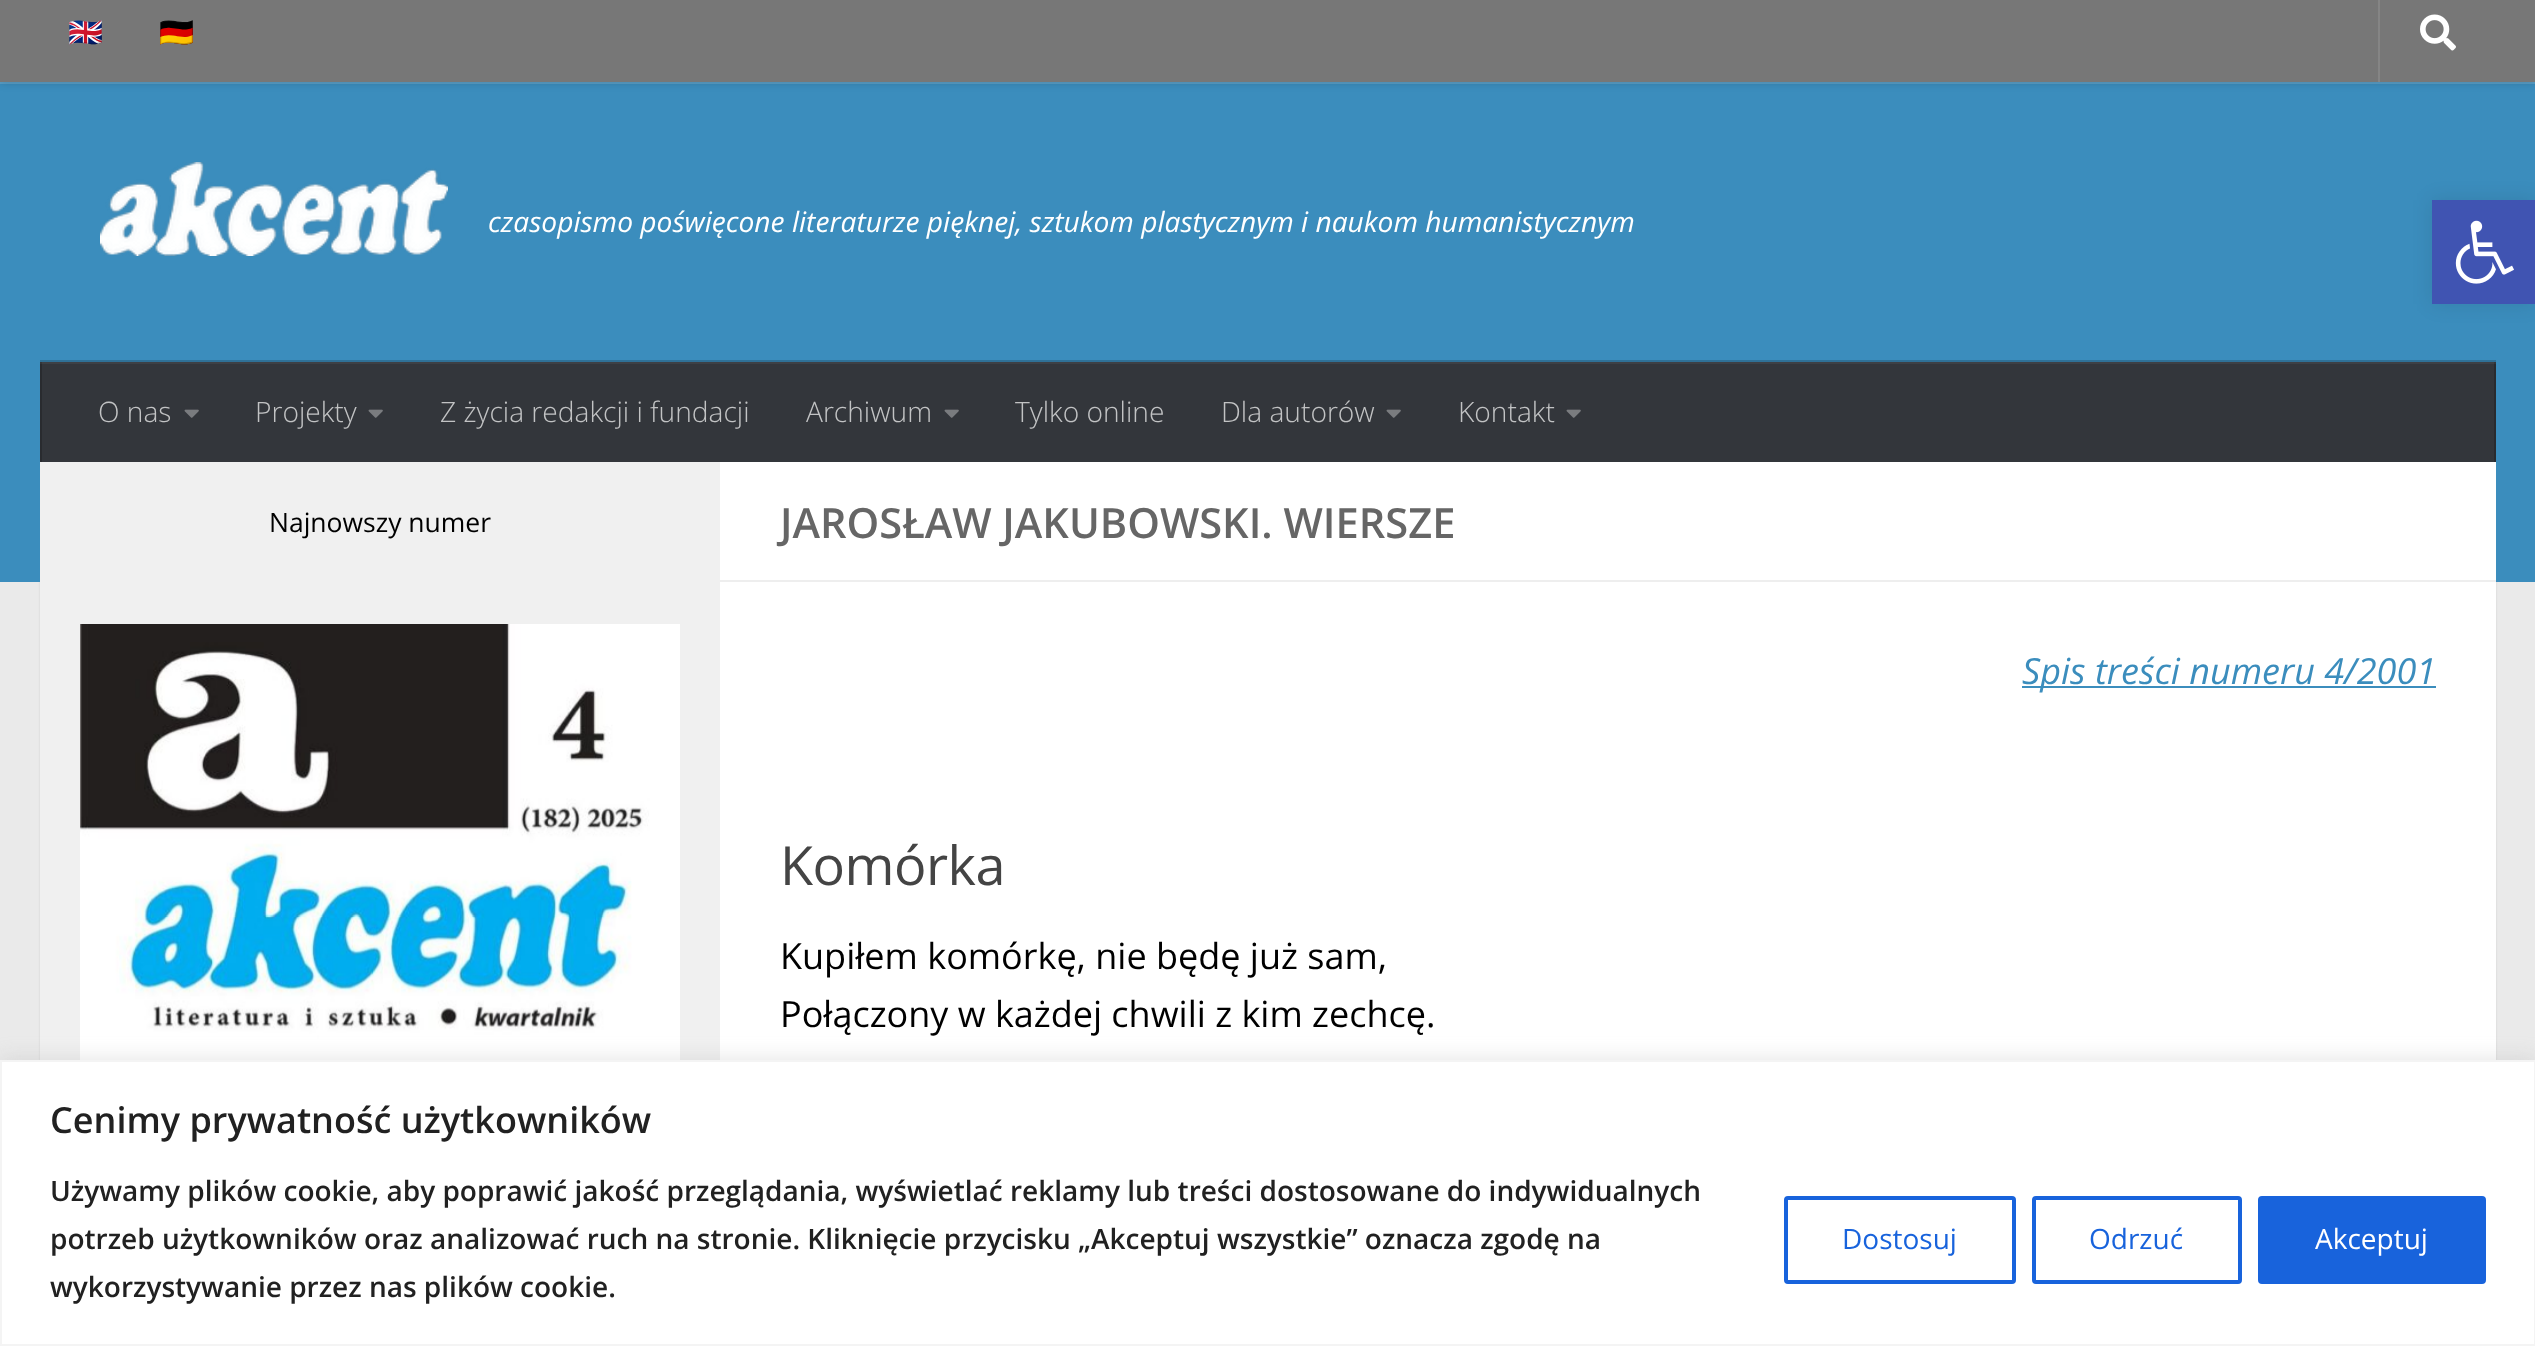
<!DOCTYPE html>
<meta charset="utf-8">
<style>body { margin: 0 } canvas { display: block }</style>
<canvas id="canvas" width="2535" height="1346"></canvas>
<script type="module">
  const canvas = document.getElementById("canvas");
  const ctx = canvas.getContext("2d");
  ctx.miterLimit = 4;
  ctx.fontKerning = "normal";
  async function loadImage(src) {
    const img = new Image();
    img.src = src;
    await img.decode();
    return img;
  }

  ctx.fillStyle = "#eaeaea";
  ctx.fillRect(0, 0, 2535, 1346);
  ctx.fillStyle = "rgba(0, 0, 0, 0.1)";
  ctx.filter = "blur(1px)";
  ctx.beginPath();
  ctx.rect(40, 464, 2456, 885);
  ctx.fill();
  ctx.filter = "none";
  ctx.fillStyle = "#3b8dbd";
  ctx.fillRect(0, 84, 2535, 498);
  ctx.fillStyle = "#589ec7";
  ctx.fillRect(0, 82, 2535, 2);
  ctx.fillStyle = "rgba(0, 0, 0, 0.2)";
  ctx.filter = "blur(5px)";
  ctx.beginPath();
  ctx.rect(0, -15, 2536, 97);
  ctx.fill();
  ctx.filter = "none";
  ctx.fillStyle = "#777777";
  ctx.fillRect(0, 0, 2535, 82);
  ctx.font = "28.15px Noto Color Emoji";
  ctx.fillStyle = "#d6d6d6";
  ctx.fillText("🇬🇧", 68, 42);
  ctx.fillText("🇩🇪", 159, 42);
  ctx.fillStyle = "#858585";
  ctx.fillRect(2378, 0, 2, 82);
  ctx.drawImage(await loadImage("img1.png"), 2420, 14, 36, 37);
  ctx.drawImage(await loadImage("img2.png"), 100, 162, 348, 94);
  ctx.font = "italic 28.15px Open Sans";
  ctx.fillStyle = "#ffffff";
  ctx.fillText("czasopismo poświęcone literaturze pięknej, sztukom plastycznym i naukom humanistycznym", 488, 232);
  ctx.fillStyle = "#2f7197";
  ctx.fillRect(40, 360, 2456, 2);
  ctx.fillStyle = "#33363b";
  ctx.fillRect(42, 364, 2452, 98);
  ctx.fillStyle = "#3d4045";
  ctx.fillRect(40, 362, 2456, 2);
  ctx.fillStyle = "#292b2f";
  ctx.fillRect(2494, 362, 2, 100);
  ctx.fillStyle = "#343639";
  ctx.fillRect(2494, 362, 2, 2);
  ctx.fillStyle = "#292b2f";
  ctx.fillRect(40, 362, 2, 100);
  ctx.fillStyle = "#343639";
  ctx.fillRect(40, 362, 2, 2);
  ctx.font = "300 28.15px Open Sans";
  ctx.fillStyle = "#c2c3c4";
  ctx.fillText("O nas", 98, 422);
  ctx.drawImage(await loadImage("img3.png"), 184, 409, 15, 9);
  ctx.fillText("Projekty", 255, 422);
  ctx.drawImage(await loadImage("img3.png"), 368, 409, 15, 9);
  ctx.fillText("Z życia redakcji i fundacji", 440, 422);
  ctx.fillText("Archiwum", 806, 422);
  ctx.drawImage(await loadImage("img3.png"), 944, 409, 15, 9);
  ctx.fillText("Tylko online", 1015, 422);
  ctx.fillText("Dla autorów", 1221, 422);
  ctx.drawImage(await loadImage("img3.png"), 1386, 409, 15, 9);
  ctx.fillText("Kontakt", 1458, 422);
  ctx.drawImage(await loadImage("img3.png"), 1566, 409, 15, 9);
  ctx.fillStyle = "#ffffff";
  ctx.fillRect(720, 462, 1776, 598);
  ctx.fillStyle = "#f0f0f0";
  ctx.fillRect(40, 462, 680, 598);
  ctx.font = "26.5px Open Sans";
  ctx.fillStyle = "#000000";
  ctx.fillText("Najnowszy numer", 269, 532);
  ctx.drawImage(await loadImage("img4.png"), 80, 624, 600, 436);
  ctx.fillStyle = "#eeeeee";
  ctx.fillRect(720, 580, 1776, 2);
  ctx.font = "600 41.6px Open Sans";
  ctx.fillStyle = "#666666";
  ctx.fillText("JAROSŁAW JAKUBOWSKI. WIERSZE", 780, 538);
  ctx.fillStyle = "#3b8dbd";
  ctx.fillRect(2022, 686, 414, 2);
  ctx.font = "italic 36px Open Sans";
  ctx.fillText("Spis treści numeru 4/2001", 2022, 684);
  ctx.letterSpacing = "-0.5px";
  ctx.font = "54px Open Sans";
  ctx.fillStyle = "#444444";
  ctx.fillText("Komórka", 780, 885);
  ctx.letterSpacing = "0px";
  ctx.font = "36px Open Sans";
  ctx.fillStyle = "#000000";
  ctx.fillText("Kupiłem komórkę, nie będę już sam,", 780, 969);
  ctx.fillText("Połączony w każdej chwili z kim zechcę.", 780, 1027);
  ctx.fillStyle = "rgba(0, 0, 0, 0.1)";
  ctx.filter = "blur(10px)";
  ctx.beginPath();
  ctx.rect(2432, 200, 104, 104);
  ctx.fill();
  ctx.filter = "none";
  ctx.fillStyle = "#4054b2";
  ctx.fillRect(2432, 200, 103, 104);
  ctx.drawImage(await loadImage("img5.png"), 2455, 220, 59, 64);
  ctx.fillStyle = "rgba(172, 171, 171, 0.3)";
  ctx.filter = "blur(10px)";
  ctx.beginPath();
  ctx.rect(0, 1058, 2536, 286);
  ctx.fill();
  ctx.filter = "none";
  ctx.fillStyle = "#ffffff";
  ctx.beginPath();
  ctx.rect(1, 1061, 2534, 284);
  ctx.fill();
  ctx.strokeStyle = "#f4f4f4";
  ctx.lineWidth = 2;
  ctx.stroke();
  ctx.font = "600 36px Open Sans";
  ctx.fillStyle = "#212121";
  ctx.fillText("Cenimy prywatność użytkowników", 50, 1133);
  ctx.font = "600 28px Open Sans";
  ctx.fillText("Używamy plików cookie, aby poprawić jakość przeglądania, wyświetlać reklamy lub treści dostosowane do indywidualnych", 50, 1201);
  ctx.fillText("potrzeb użytkowników oraz analizować ruch na stronie. Kliknięcie przycisku „Akceptuj wszystkie” oznacza zgodę na", 50, 1249);
  ctx.fillText("wykorzystywanie przez nas plików cookie.", 50, 1297);
  ctx.beginPath();
  ctx.roundRect(1786, 1198, 228, 84, 2);
  ctx.strokeStyle = "#1863dc";
  ctx.lineWidth = 4;
  ctx.stroke();
  ctx.font = "28px Open Sans";
  ctx.fillStyle = "#1863dc";
  ctx.fillText("Dostosuj", 1842, 1249);
  ctx.beginPath();
  ctx.roundRect(2034, 1198, 206, 84, 2);
  ctx.stroke();
  ctx.fillText("Odrzuć", 2089, 1249);
  ctx.beginPath();
  ctx.roundRect(2260, 1198, 224, 84, 2);
  ctx.fill();
  ctx.stroke();
  ctx.fillStyle = "#ffffff";
  ctx.fillText("Akceptuj", 2315, 1249);
</script>
